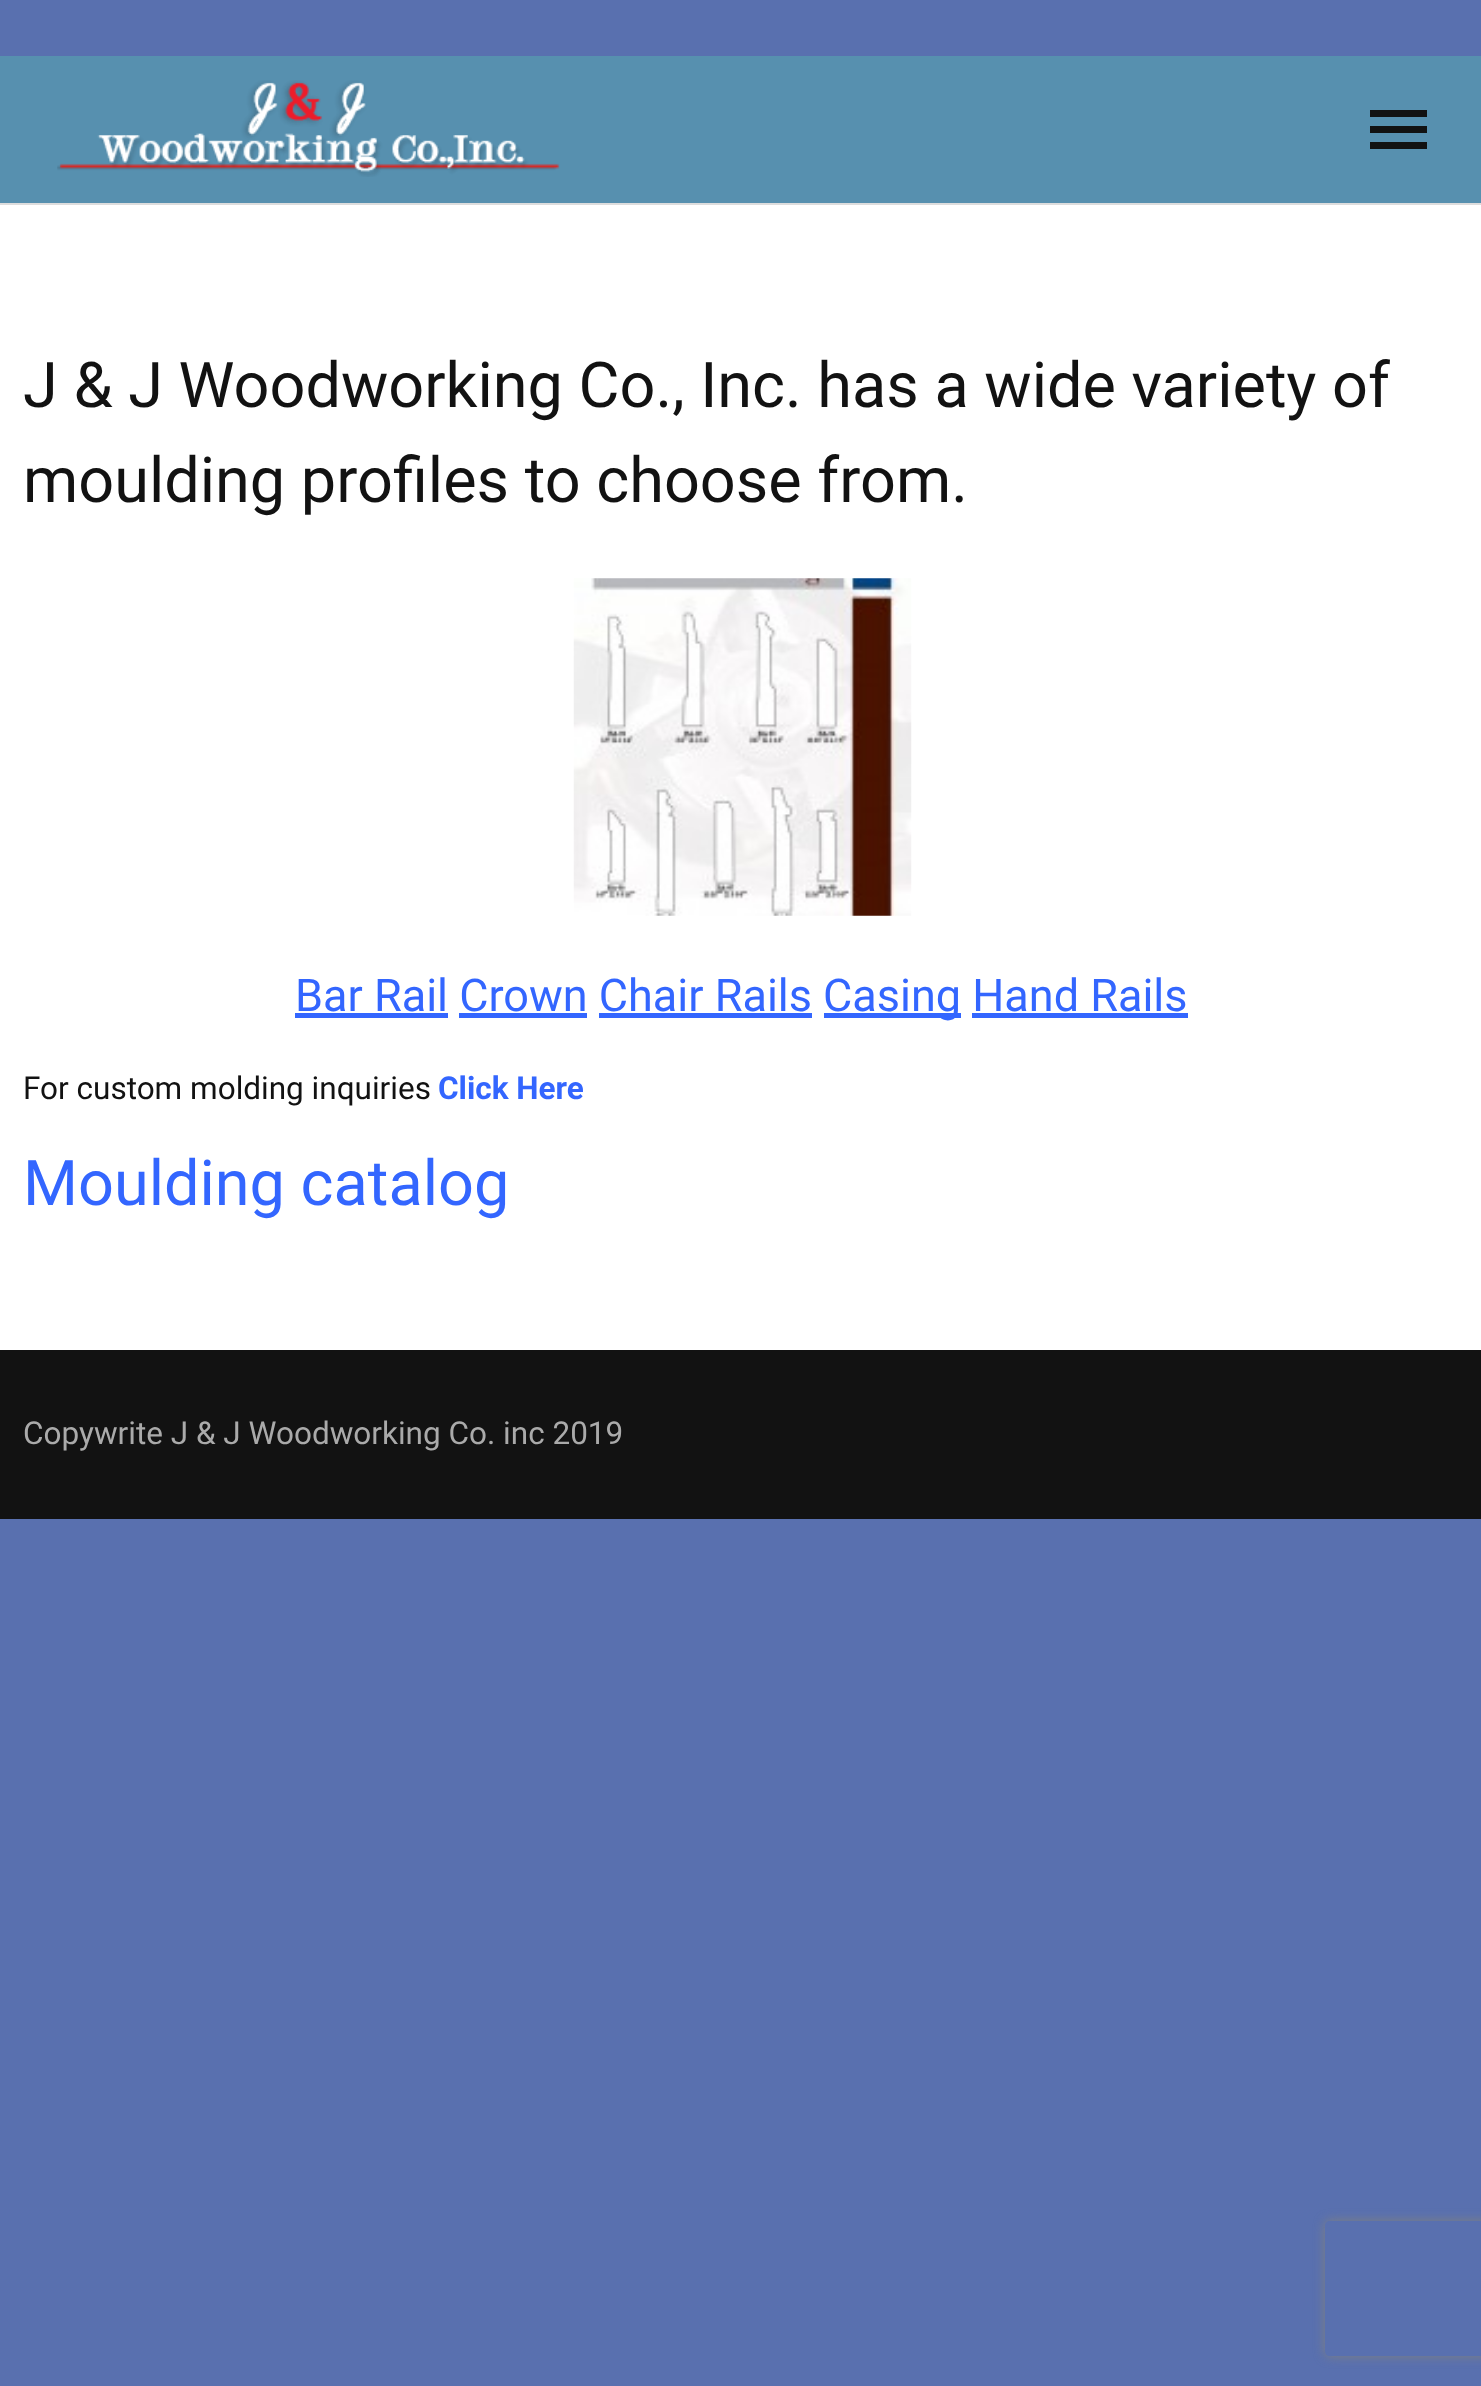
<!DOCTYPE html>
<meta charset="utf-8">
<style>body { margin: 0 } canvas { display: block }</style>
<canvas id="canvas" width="1481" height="2386"></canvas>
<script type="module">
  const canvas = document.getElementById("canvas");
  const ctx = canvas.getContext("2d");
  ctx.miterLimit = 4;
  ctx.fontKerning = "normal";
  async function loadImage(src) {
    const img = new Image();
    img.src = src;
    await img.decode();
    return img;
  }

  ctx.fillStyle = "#5970af";
  ctx.fillRect(0, 0, 1481, 2386);
  ctx.fillStyle = "#ffffff";
  ctx.fillRect(0, 205, 1481, 1145);
  ctx.fillStyle = "#5790af";
  ctx.fillRect(0, 56, 1481, 147);
  ctx.fillStyle = "#dddddd";
  ctx.fillRect(0, 203, 1481, 2);
  ctx.drawImage(await loadImage("img1.png"), 57, 80, 503, 97);
  ctx.fillStyle = "#121212";
  ctx.fillRect(1370, 110, 57, 7);
  ctx.fillRect(1370, 126, 57, 7);
  ctx.fillRect(1370, 142, 57, 7);
  ctx.font = "63px Roboto";
  ctx.fillText("J & J Woodworking Co., Inc. has a wide variety of", 23, 407);
  ctx.fillText("moulding profiles to choose from.", 23, 502);
  ctx.drawImage(await loadImage("img2.png"), 573, 578, 339, 338);
  ctx.font = "45px Roboto";
  ctx.fillStyle = "#3366ff";
  ctx.fillText("Bar Rail Crown Chair Rails", 295, 1011);
  ctx.fillRect(295, 1013, 153, 5);
  ctx.fillRect(459, 1013, 128, 5);
  ctx.fillRect(824, 1013, 137, 5);
  ctx.fillText("Casing Hand Rails", 823, 1011);
  ctx.fillRect(599, 1013, 213, 5);
  ctx.fillRect(972, 1013, 216, 5);
  ctx.font = "31.5px Roboto";
  ctx.fillStyle = "#121212";
  ctx.fillText("For custom molding inquiries", 23, 1099);
  ctx.font = "bold 31.5px Roboto";
  ctx.fillStyle = "#3366ff";
  ctx.fillText("Click Here", 438, 1099);
  ctx.font = "63px Roboto";
  ctx.fillText("Moulding catalog", 23, 1205);
  ctx.fillStyle = "#121212";
  ctx.fillRect(0, 1350, 1481, 169);
  ctx.font = "31.5px Roboto";
  ctx.fillStyle = "#aaaaaa";
  ctx.fillText("Copywrite J & J Woodworking Co. inc 2019", 23, 1444);
  ctx.save();
  ctx.beginPath();
  ctx.moveTo(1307, 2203);
  ctx.lineTo(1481, 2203);
  ctx.lineTo(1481, 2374);
  ctx.lineTo(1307, 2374);
  ctx.closePath();
  ctx.moveTo(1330, 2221);
  ctx.lineTo(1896, 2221);
  ctx.bezierCurveTo(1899, 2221, 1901, 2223, 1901, 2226);
  ctx.lineTo(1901, 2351);
  ctx.bezierCurveTo(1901, 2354, 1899, 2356, 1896, 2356);
  ctx.lineTo(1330, 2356);
  ctx.bezierCurveTo(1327, 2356, 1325, 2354, 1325, 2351);
  ctx.lineTo(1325, 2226);
  ctx.bezierCurveTo(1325, 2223, 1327, 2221, 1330, 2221);
  ctx.closePath();
  ctx.clip("evenodd");
  ctx.fillStyle = "#808080";
  ctx.filter = "blur(5.5px)";
  ctx.beginPath();
  ctx.roundRect(1325, 2221, 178, 135, 5);
  ctx.fill();
  ctx.filter = "none";
  ctx.restore();
</script>
